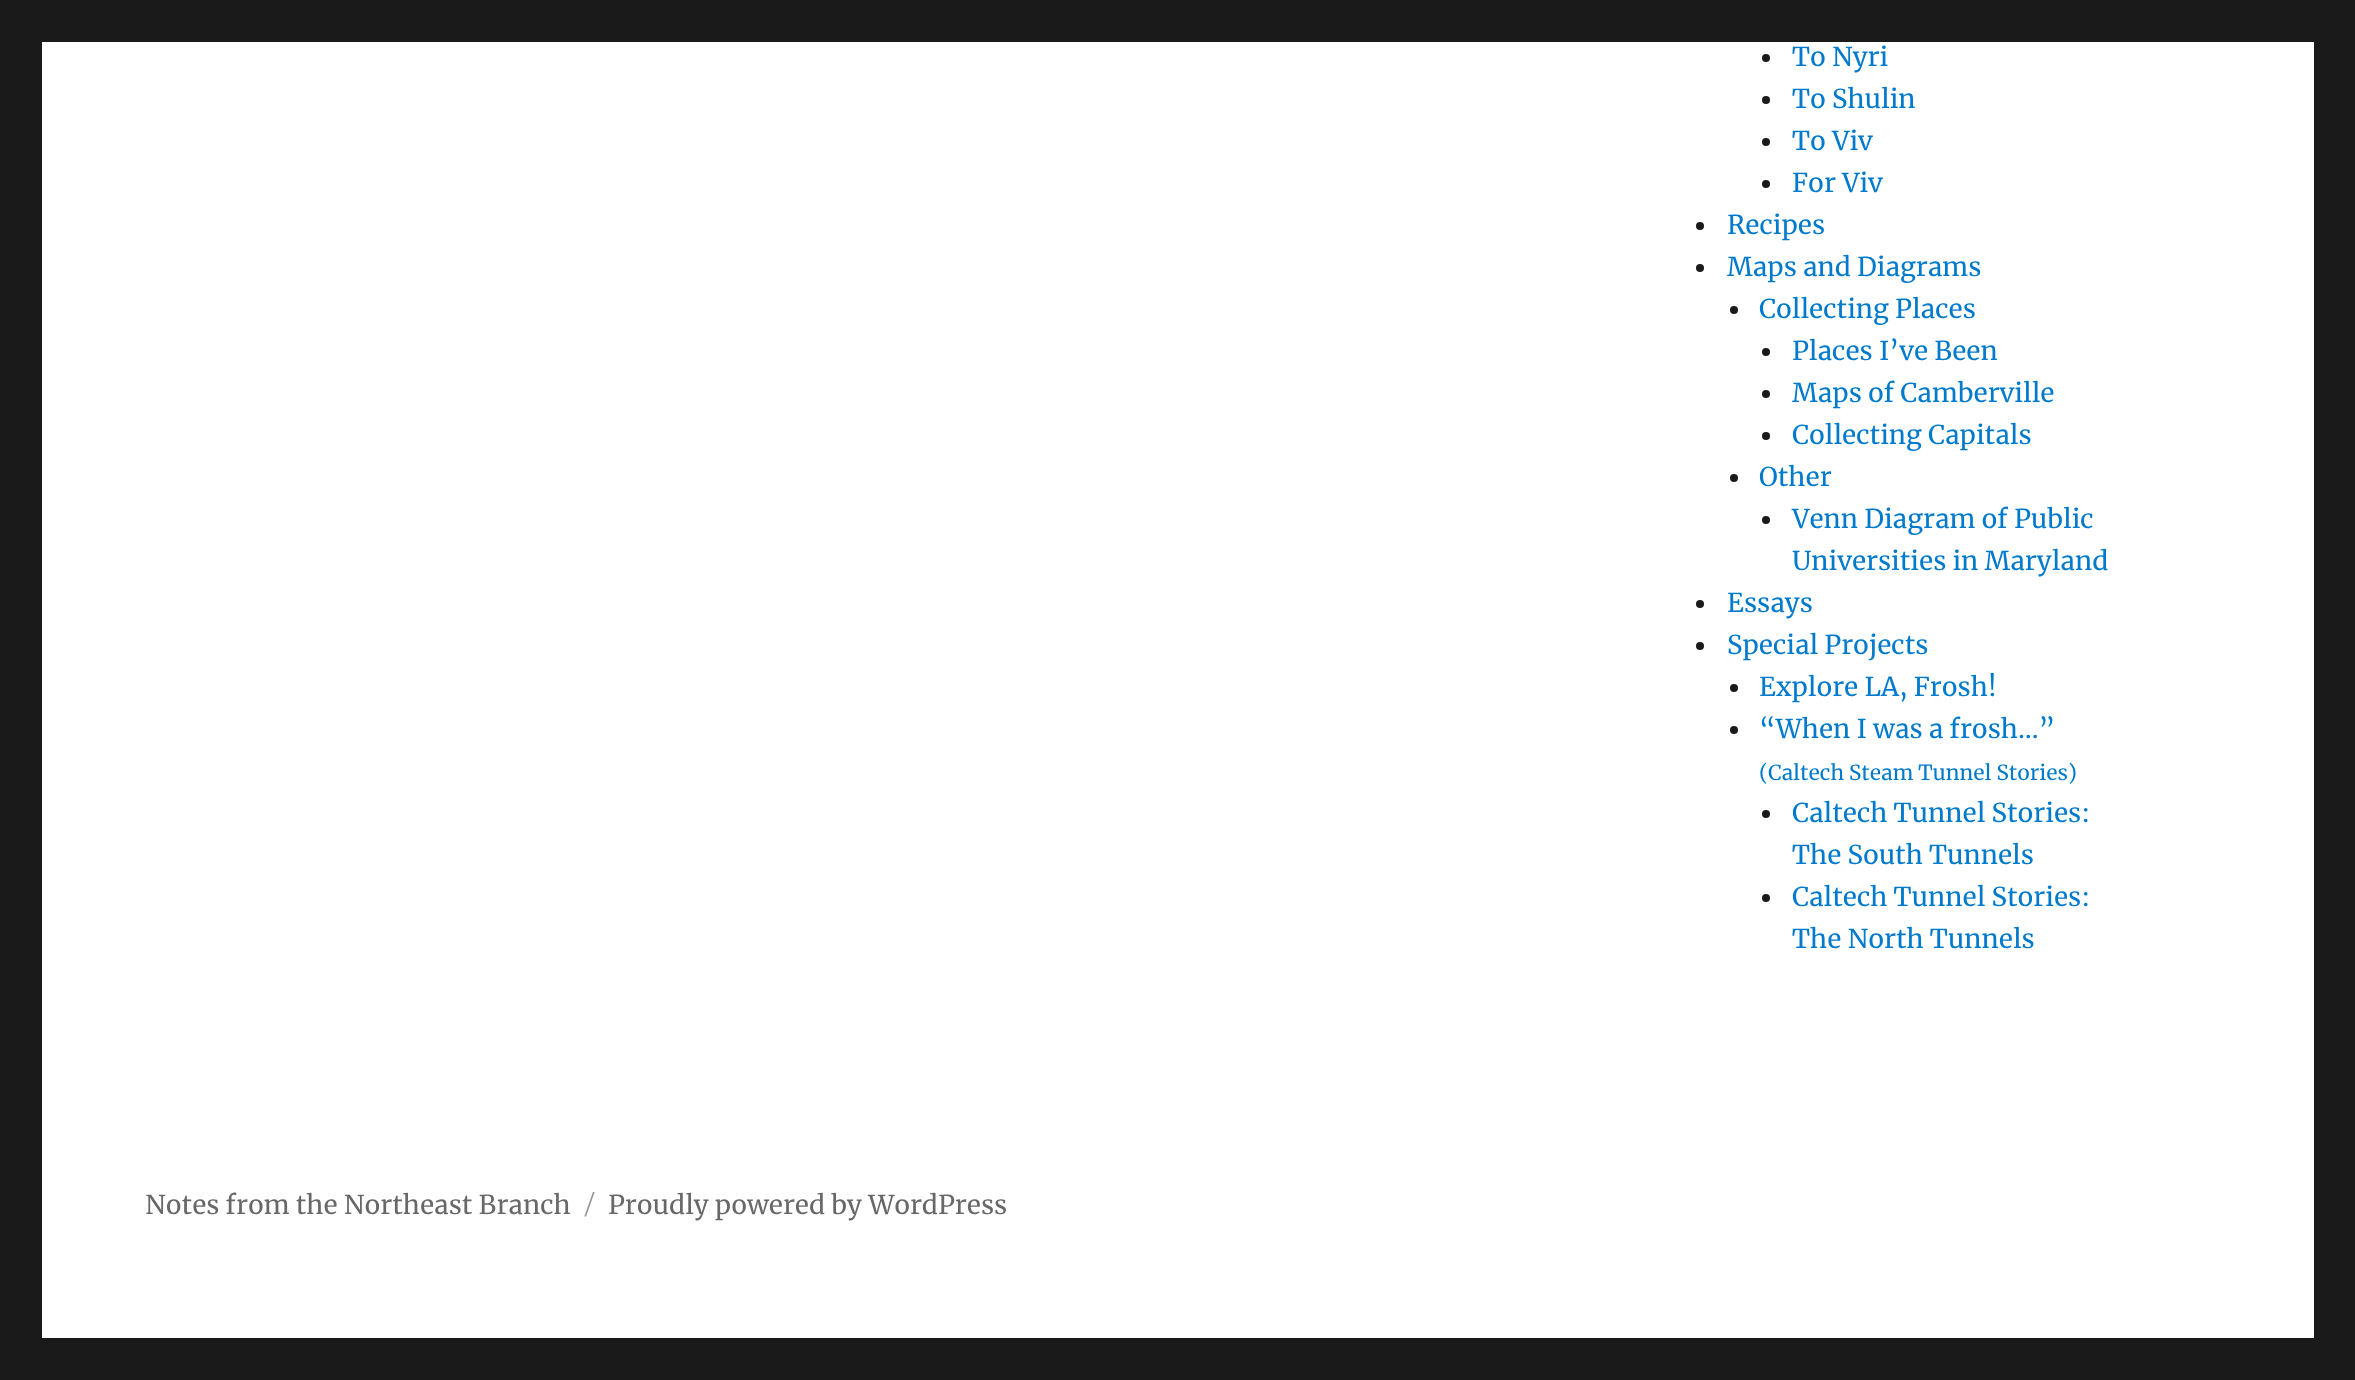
<!DOCTYPE html>
<meta charset="utf-8">
<style>body { margin: 0 } canvas { display: block }</style>
<canvas id="canvas" width="2355" height="1380"></canvas>
<script type="module">
  const canvas = document.getElementById("canvas");
  const ctx = canvas.getContext("2d");
  ctx.miterLimit = 4;
  ctx.fontKerning = "normal";

  ctx.fillStyle = "#1a1a1a";
  ctx.fillRect(0, 0, 2355, 1380);
  ctx.fillStyle = "#ffffff";
  ctx.fillRect(42, 42, 2272, 1296);
  ctx.fillStyle = "#1a1a1a";
  ctx.beginPath();
  ctx.arc(1766, 58, 4, 0, Math.PI * 2);
  ctx.fill();
  ctx.font = "26px Merriweather";
  ctx.fillStyle = "#007acc";
  ctx.fillText("To Nyri", 1792, 66);
  ctx.fillStyle = "#1a1a1a";
  ctx.beginPath();
  ctx.arc(1766, 100, 4, 0, Math.PI * 2);
  ctx.fill();
  ctx.fillStyle = "#007acc";
  ctx.fillText("To Shulin", 1792, 108);
  ctx.fillStyle = "#1a1a1a";
  ctx.beginPath();
  ctx.arc(1766, 142, 4, 0, Math.PI * 2);
  ctx.fill();
  ctx.fillStyle = "#007acc";
  ctx.fillText("To Viv", 1792, 150);
  ctx.fillStyle = "#1a1a1a";
  ctx.beginPath();
  ctx.arc(1766, 184, 4, 0, Math.PI * 2);
  ctx.fill();
  ctx.fillStyle = "#007acc";
  ctx.fillText("For Viv", 1792, 192);
  ctx.fillStyle = "#1a1a1a";
  ctx.beginPath();
  ctx.arc(1700, 226, 4, 0, Math.PI * 2);
  ctx.fill();
  ctx.fillStyle = "#007acc";
  ctx.fillText("Recipes", 1727, 234);
  ctx.fillStyle = "#1a1a1a";
  ctx.beginPath();
  ctx.arc(1700, 268, 4, 0, Math.PI * 2);
  ctx.fill();
  ctx.fillStyle = "#007acc";
  ctx.fillText("Maps and Diagrams", 1727, 276);
  ctx.fillStyle = "#1a1a1a";
  ctx.beginPath();
  ctx.arc(1734, 310, 4, 0, Math.PI * 2);
  ctx.fill();
  ctx.fillStyle = "#007acc";
  ctx.fillText("Collecting Places", 1759, 318);
  ctx.fillStyle = "#1a1a1a";
  ctx.beginPath();
  ctx.arc(1766, 352, 4, 0, Math.PI * 2);
  ctx.fill();
  ctx.fillStyle = "#007acc";
  ctx.fillText("Places I’ve Been", 1792, 360);
  ctx.fillStyle = "#1a1a1a";
  ctx.beginPath();
  ctx.arc(1766, 394, 4, 0, Math.PI * 2);
  ctx.fill();
  ctx.fillStyle = "#007acc";
  ctx.fillText("Maps of Camberville", 1792, 402);
  ctx.fillStyle = "#1a1a1a";
  ctx.beginPath();
  ctx.arc(1766, 436, 4, 0, Math.PI * 2);
  ctx.fill();
  ctx.fillStyle = "#007acc";
  ctx.fillText("Collecting Capitals", 1792, 444);
  ctx.fillStyle = "#1a1a1a";
  ctx.beginPath();
  ctx.arc(1734, 478, 4, 0, Math.PI * 2);
  ctx.fill();
  ctx.fillStyle = "#007acc";
  ctx.fillText("Other", 1759, 486);
  ctx.fillStyle = "#1a1a1a";
  ctx.beginPath();
  ctx.arc(1766, 520, 4, 0, Math.PI * 2);
  ctx.fill();
  ctx.fillStyle = "#007acc";
  ctx.fillText("Venn Diagram of Public", 1792, 528);
  ctx.fillText("Universities in Maryland", 1792, 570);
  ctx.fillStyle = "#1a1a1a";
  ctx.beginPath();
  ctx.arc(1700, 604, 4, 0, Math.PI * 2);
  ctx.fill();
  ctx.fillStyle = "#007acc";
  ctx.fillText("Essays", 1727, 612);
  ctx.fillStyle = "#1a1a1a";
  ctx.beginPath();
  ctx.arc(1700, 646, 4, 0, Math.PI * 2);
  ctx.fill();
  ctx.fillStyle = "#007acc";
  ctx.fillText("Special Projects", 1727, 654);
  ctx.fillStyle = "#1a1a1a";
  ctx.beginPath();
  ctx.arc(1734, 688, 4, 0, Math.PI * 2);
  ctx.fill();
  ctx.fillStyle = "#007acc";
  ctx.fillText("Explore LA, Frosh!", 1759, 696);
  ctx.fillStyle = "#1a1a1a";
  ctx.beginPath();
  ctx.arc(1734, 730, 4, 0, Math.PI * 2);
  ctx.fill();
  ctx.fillStyle = "#007acc";
  ctx.fillText("“When I was a frosh…”", 1759, 738);
  ctx.font = "20.75px Merriweather";
  ctx.fillText("(Caltech Steam Tunnel Stories)", 1759, 780);
  ctx.fillStyle = "#1a1a1a";
  ctx.beginPath();
  ctx.arc(1766, 814, 4, 0, Math.PI * 2);
  ctx.fill();
  ctx.font = "26px Merriweather";
  ctx.fillStyle = "#007acc";
  ctx.fillText("Caltech Tunnel Stories:", 1792, 822);
  ctx.fillText("The South Tunnels", 1792, 864);
  ctx.fillStyle = "#1a1a1a";
  ctx.beginPath();
  ctx.arc(1766, 898, 4, 0, Math.PI * 2);
  ctx.fill();
  ctx.fillStyle = "#007acc";
  ctx.fillText("Caltech Tunnel Stories:", 1792, 906);
  ctx.fillText("The North Tunnels", 1792, 948);
  ctx.fillStyle = "#686868";
  ctx.fillText("Notes from the Northeast Branch", 145, 1214);
  ctx.font = "100 26px Montserrat";
  ctx.fillStyle = "#959595";
  ctx.fillText("/", 585, 1214);
  ctx.font = "26px Merriweather";
  ctx.fillStyle = "#686868";
  ctx.fillText("Proudly powered by WordPress", 608, 1214);
</script>
